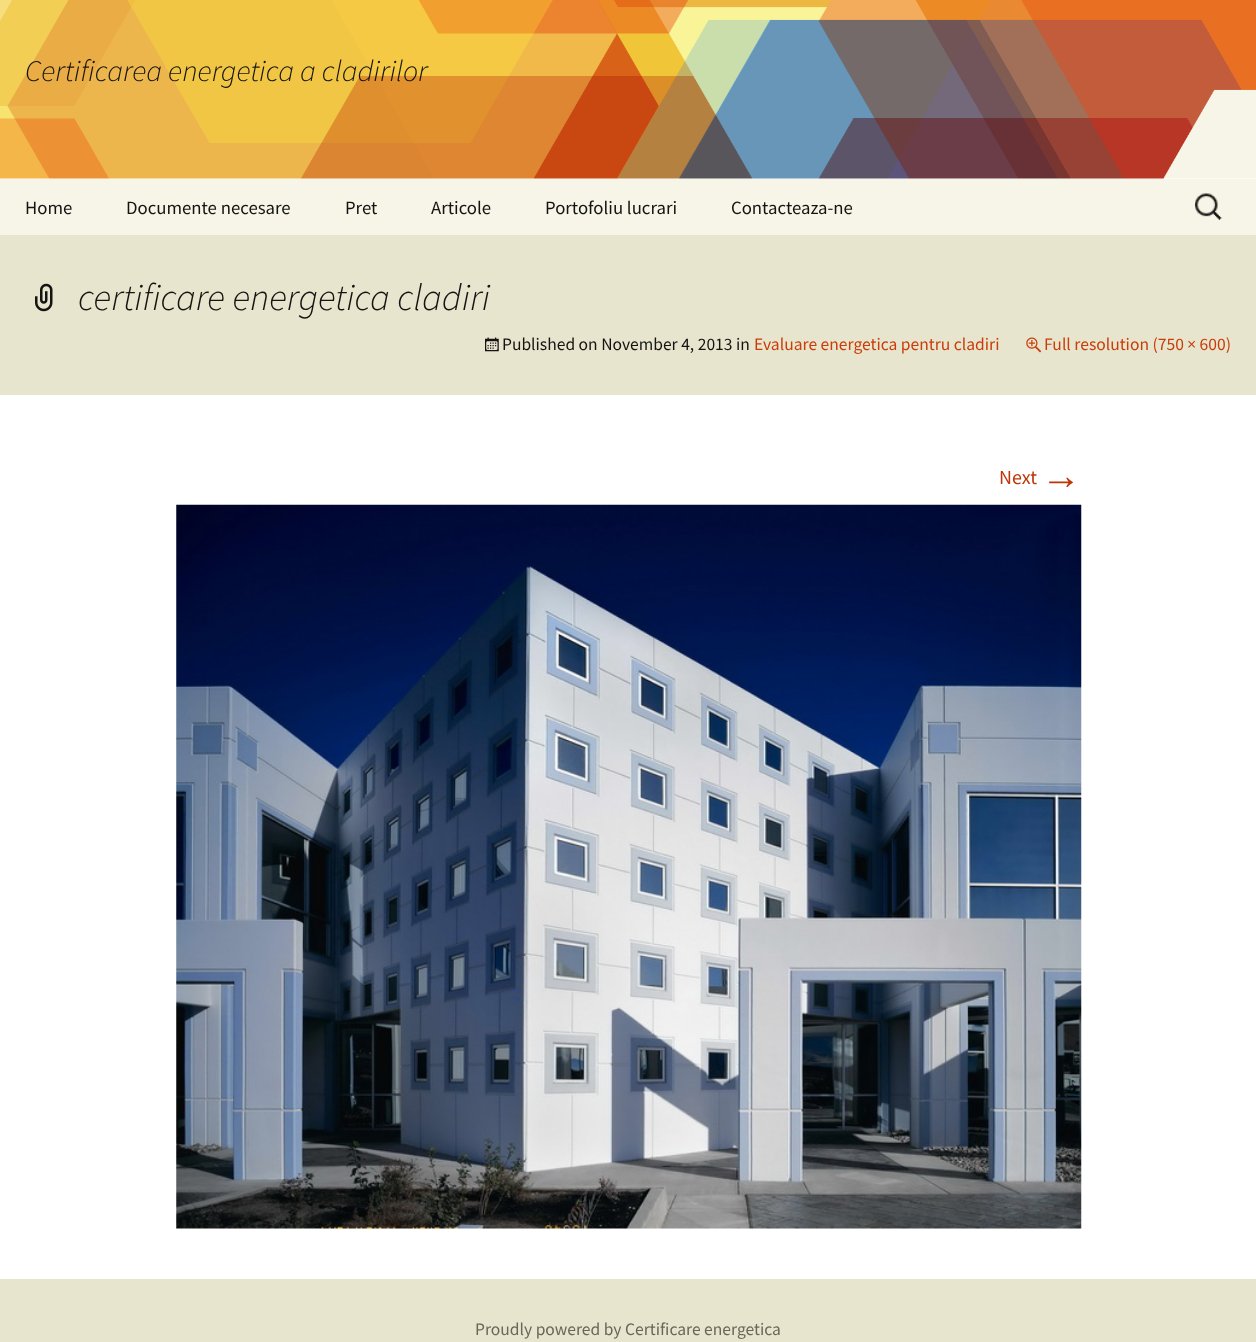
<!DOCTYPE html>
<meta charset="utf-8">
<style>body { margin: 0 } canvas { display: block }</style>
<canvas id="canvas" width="1256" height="1342"></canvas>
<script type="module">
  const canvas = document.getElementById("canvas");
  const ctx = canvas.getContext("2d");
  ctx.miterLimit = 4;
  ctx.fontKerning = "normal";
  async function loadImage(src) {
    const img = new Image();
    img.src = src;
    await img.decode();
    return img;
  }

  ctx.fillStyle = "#ffffff";
  ctx.fillRect(0, 0, 1256, 1342);
  ctx.drawImage(await loadImage("img1.png"), 0, 0, 1256, 179);
  ctx.font = "italic 300 30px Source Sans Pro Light";
  ctx.fillStyle = "#141412";
  ctx.fillText("Certificarea energetica a cladirilor", 25, 81);
  ctx.fillStyle = "#f7f5e7";
  ctx.fillRect(0, 179, 1256, 56);
  ctx.font = "18.75px Source Sans Pro";
  ctx.fillStyle = "#141412";
  ctx.fillText("Home", 25, 214);
  ctx.fillText("Documente necesare", 126, 214);
  ctx.fillText("Pret", 345, 214);
  ctx.fillText("Articole", 431, 214);
  ctx.fillText("Portofoliu lucrari", 545, 214);
  ctx.fillText("Contacteaza-ne", 731, 214);
  ctx.drawImage(await loadImage("img2.png"), 1195, 193, 27, 27);
  ctx.fillStyle = "#e8e5ce";
  ctx.fillRect(0, 235, 1256, 160);
  ctx.drawImage(await loadImage("img3.png"), 35, 283, 18, 29);
  ctx.font = "italic 300 37.5px Source Sans Pro Light";
  ctx.fillStyle = "#141412";
  ctx.fillText("certificare energetica cladiri", 78, 310);
  ctx.drawImage(await loadImage("img4.png"), 485, 337, 14, 15);
  ctx.font = "17.5px Source Sans Pro";
  ctx.fillText("Published on November 4, 2013 in", 502, 350);
  ctx.fillStyle = "#ca3c08";
  ctx.fillText("Evaluare energetica pentru cladiri", 754, 350);
  ctx.drawImage(await loadImage("img5.png"), 1026, 337, 16, 16);
  ctx.fillText("Full resolution (750 × 600)", 1044, 350);
  ctx.font = "20px Source Sans Pro";
  ctx.fillStyle = "#bc360a";
  ctx.fillText("Next", 999, 484);
  ctx.font = "40px Liberation Sans";
  ctx.fillText("→", 1041, 489);
  ctx.drawImage(await loadImage("img6.png"), 176, 504, 906, 725);
  ctx.fillStyle = "#e8e5ce";
  ctx.fillRect(0, 1279, 1256, 63);
  ctx.font = "17.5px Source Sans Pro";
  ctx.fillStyle = "#686758";
  ctx.fillText("Proudly powered by Certificare energetica", 475, 1335);
</script>
